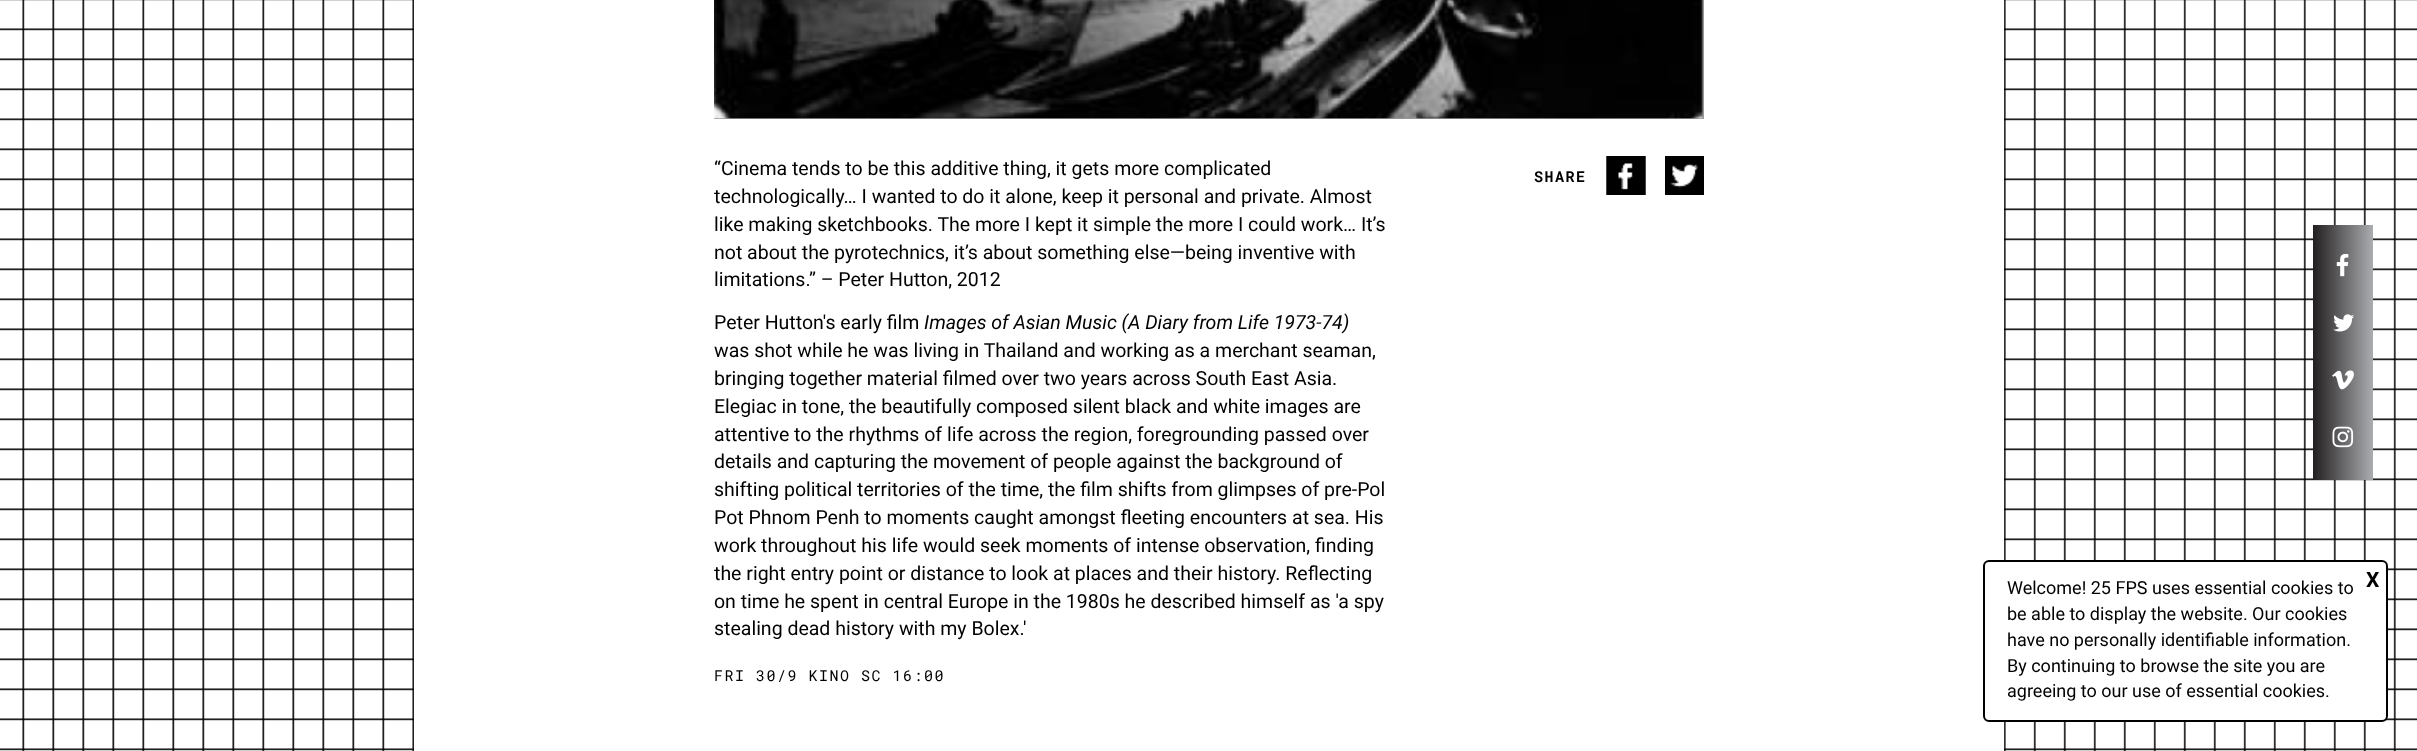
<!DOCTYPE html>
<meta charset="utf-8">
<style>body { margin: 0 } canvas { display: block }</style>
<canvas id="canvas" width="2417" height="751"></canvas>
<script type="module">
  const canvas = document.getElementById("canvas");
  const ctx = canvas.getContext("2d");
  ctx.miterLimit = 4;
  ctx.fontKerning = "normal";
  async function loadImage(src) {
    const img = new Image();
    img.src = src;
    await img.decode();
    return img;
  }
  let gradient;

  ctx.fillStyle = "#ffffff";
  ctx.fillRect(0, 0, 2417, 751);
  ctx.drawImage(await loadImage("img1.png"), 0, 0, 414, 751);
  ctx.fillStyle = "#999999";
  ctx.fillRect(714, 0, 990, 119);
  ctx.drawImage(await loadImage("img2.png"), 714, 0, 989, 119);
  ctx.font = "19.5px Roboto";
  ctx.fillStyle = "#000000";
  ctx.fillText("“Cinema tends to be this additive thing, it gets more complicated", 714, 175);
  ctx.fillText("technologically… I wanted to do it alone, keep it personal and private. Almost", 714, 203);
  ctx.fillText("like making sketchbooks. The more I kept it simple the more I could work… It’s", 714, 231);
  ctx.fillText("not about the pyrotechnics, it’s about something else—being inventive with", 714, 259);
  ctx.fillText("limitations.” – Peter Hutton, 2012", 714, 286);
  ctx.fillText("Peter Hutton's early film", 714, 329);
  ctx.font = "italic 19.5px Roboto";
  ctx.fillText("Images of Asian Music (A Diary from Life 1973-74)", 924, 329);
  ctx.font = "19.5px Roboto";
  ctx.fillText("was shot while he was living in Thailand and working as a merchant seaman,", 714, 357);
  ctx.fillText("bringing together material filmed over two years across South East Asia.", 714, 385);
  ctx.fillText("Elegiac in tone, the beautifully composed silent black and white images are", 714, 413);
  ctx.fillText("attentive to the rhythms of life across the region, foregrounding passed over", 714, 441);
  ctx.fillText("details and capturing the movement of people against the background of", 714, 468);
  ctx.fillText("shifting political territories of the time, the film shifts from glimpses of pre-Pol", 714, 496);
  ctx.fillText("Pot Phnom Penh to moments caught amongst fleeting encounters at sea. His", 714, 524);
  ctx.fillText("work throughout his life would seek moments of intense observation, finding", 714, 552);
  ctx.fillText("the right entry point or distance to look at places and their history. Reflecting", 714, 580);
  ctx.fillText("on time he spent in central Europe in the 1980s he described himself as 'a spy", 714, 608);
  ctx.fillText("stealing dead history with my Bolex.'", 714, 635);
  ctx.letterSpacing = "1.5px";
  ctx.font = "15px Roboto Mono";
  ctx.fillText("FRI 30/9 KINO SC 16:00", 714, 681);
  ctx.font = "bold 15px Roboto Mono";
  ctx.fillText("SHARE", 1534, 182);
  ctx.drawImage(await loadImage("img3.png"), 1606, 156, 40, 39);
  ctx.drawImage(await loadImage("img4.png"), 1606, 156, 40, 39);
  ctx.drawImage(await loadImage("img5.png"), 1665, 156, 39, 39);
  ctx.drawImage(await loadImage("img6.png"), 2004, 0, 413, 751);
  gradient = ctx.createLinearGradient(2313, 353, 2373, 353);
  gradient.addColorStop(0, "#231f20");
  gradient.addColorStop(1, "#aaacaf");
  ctx.fillStyle = gradient;
  ctx.fillRect(2313, 225, 60, 255);
  ctx.drawImage(await loadImage("img7.png"), 2336, 253, 13, 24);
  ctx.drawImage(await loadImage("img8.png"), 2333, 314, 21, 18);
  ctx.drawImage(await loadImage("img9.png"), 2332, 370, 22, 20);
  ctx.drawImage(await loadImage("img10.png"), 2332, 426, 22, 22);
  ctx.fillStyle = "#ffffff";
  ctx.beginPath();
  ctx.roundRect(1984, 561, 403, 160, 5);
  ctx.fill();
  ctx.strokeStyle = "#000000";
  ctx.lineWidth = 2;
  ctx.stroke();
  ctx.letterSpacing = "0px";
  ctx.font = "18px Roboto";
  ctx.fillStyle = "#000000";
  ctx.fillText("Welcome! 25 FPS uses essential cookies to", 2007, 594);
  ctx.fillText("be able to display the website. Our cookies", 2007, 620);
  ctx.fillText("have no personally identifiable information.", 2007, 646);
  ctx.fillText("By continuing to browse the site you are", 2007, 672);
  ctx.fillText("agreeing to our use of essential cookies.", 2007, 697);
  ctx.font = "bold 21px Roboto";
  ctx.fillText("X", 2366, 587);
</script>
